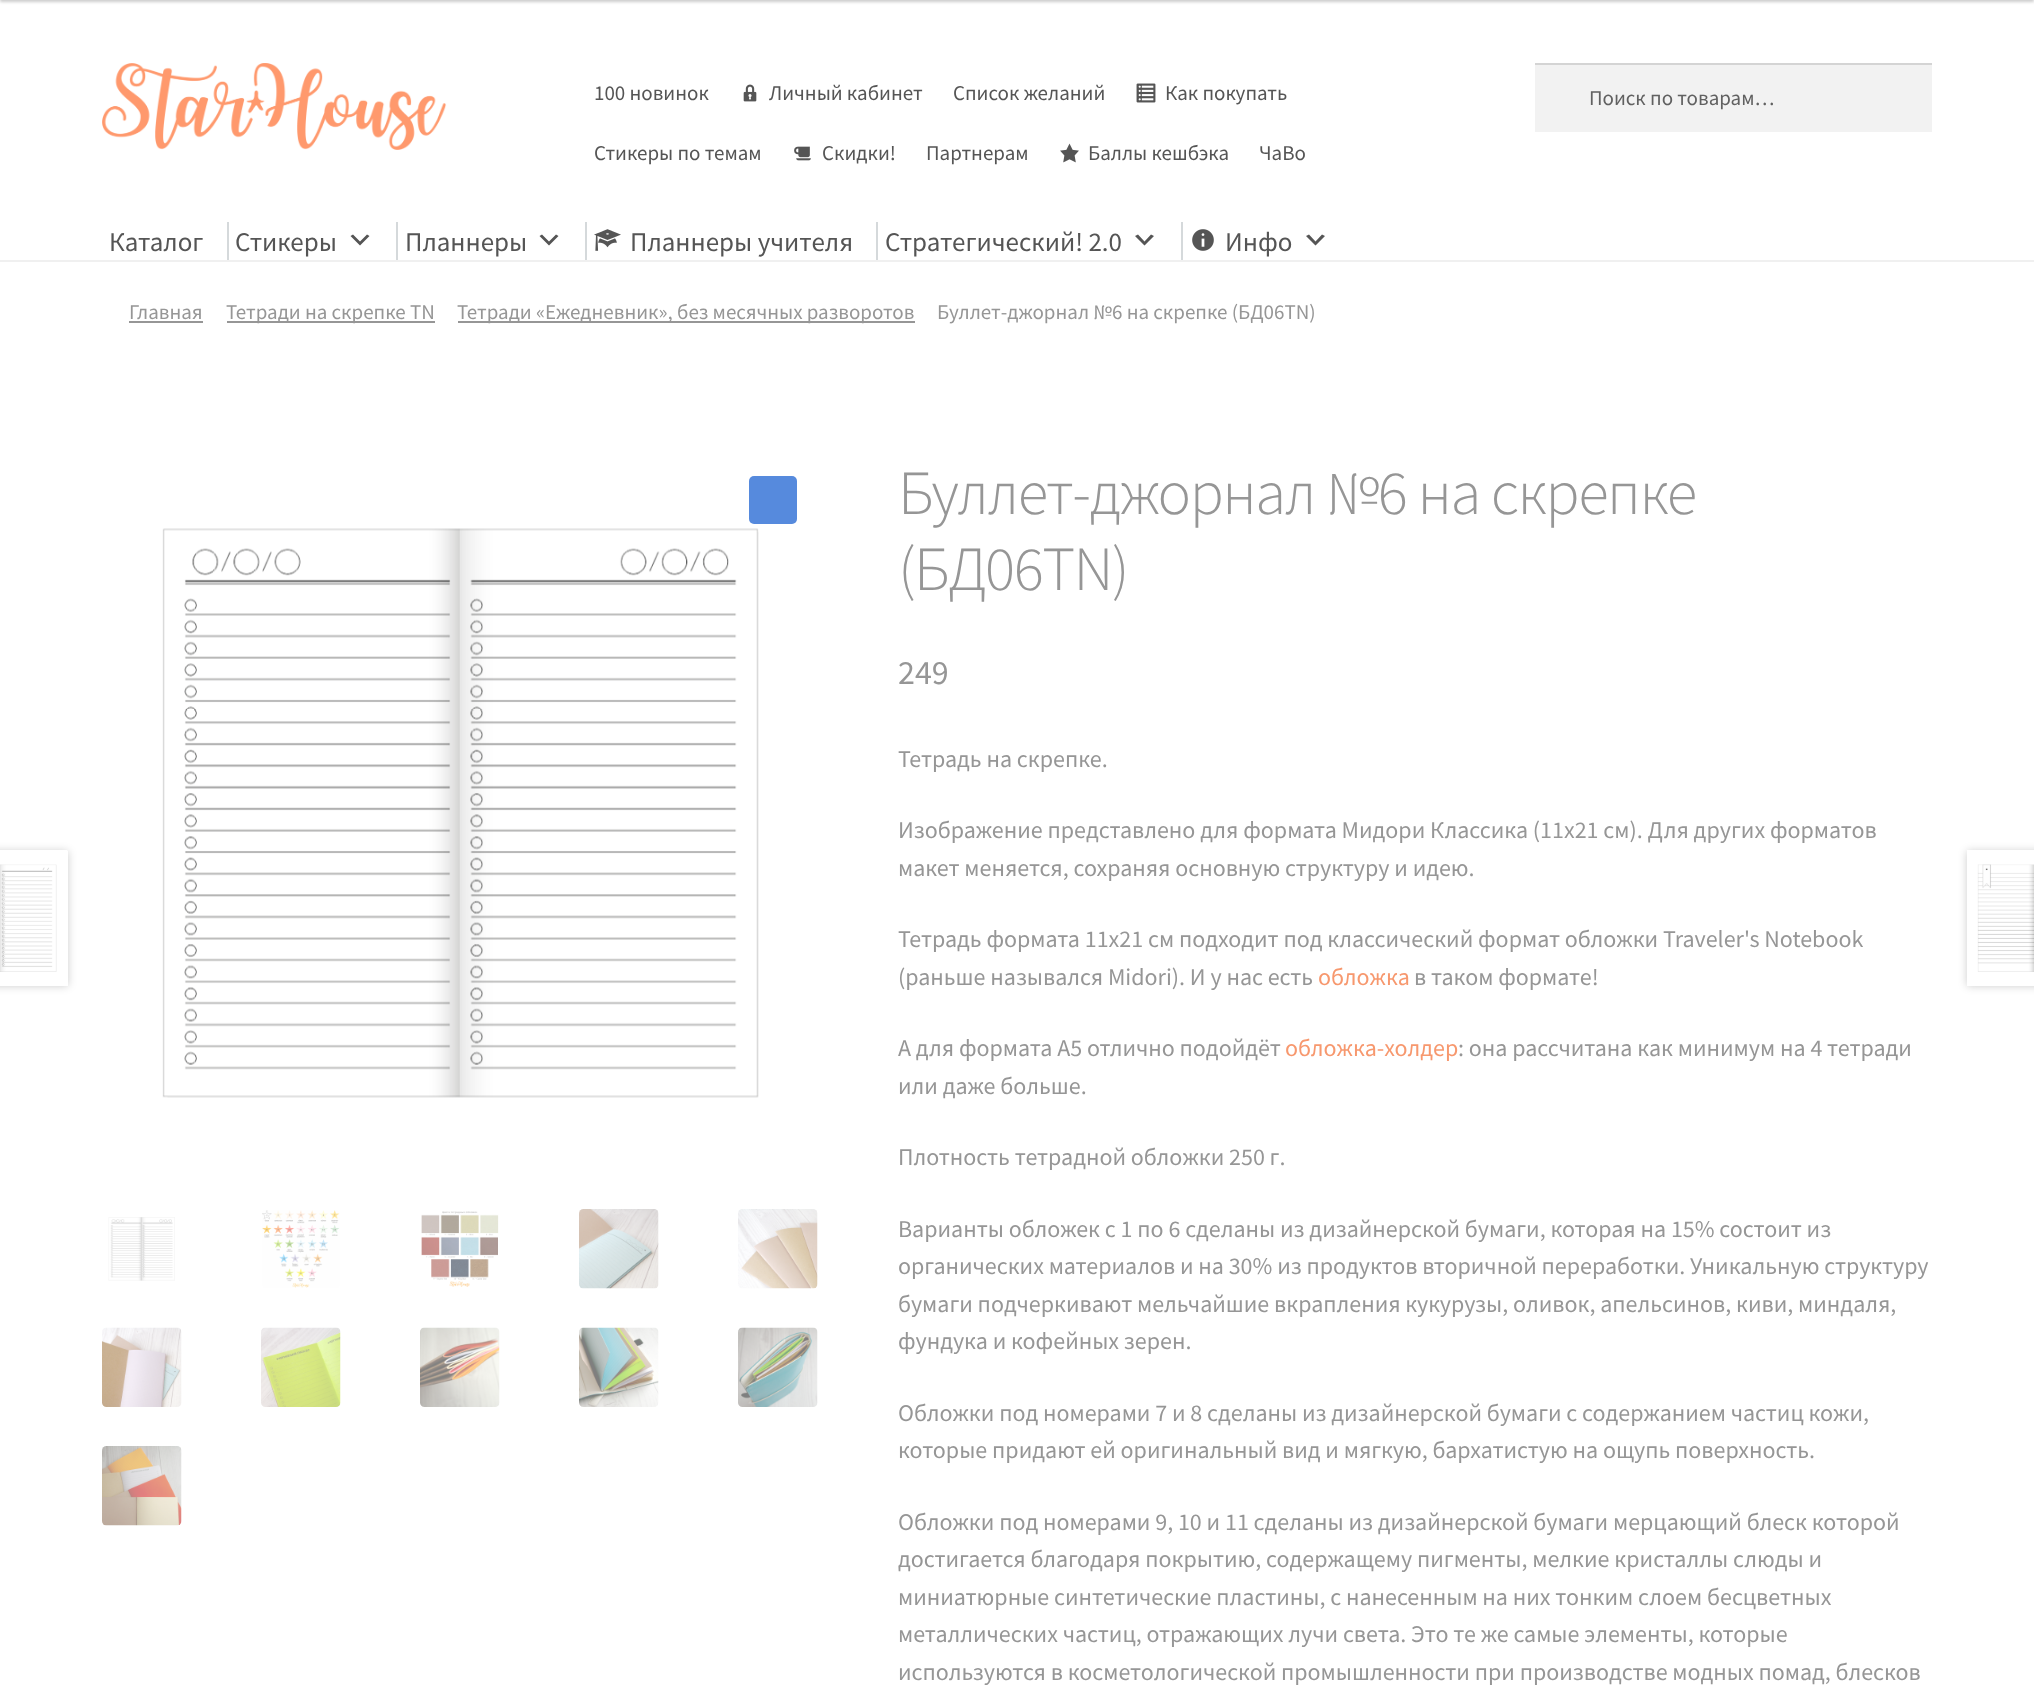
<!DOCTYPE html>
<meta charset="utf-8">
<style>body { margin: 0 } canvas { display: block }</style>
<canvas id="canvas" width="2034" height="1700"></canvas>
<script type="module">
  const canvas = document.getElementById("canvas");
  const ctx = canvas.getContext("2d");
  ctx.miterLimit = 4;
  ctx.fontKerning = "normal";
  async function loadImage(src) {
    const img = new Image();
    img.src = src;
    await img.decode();
    return img;
  }

  ctx.fillStyle = "#ffffff";
  ctx.fillRect(0, 0, 2034, 1700);
  ctx.fillStyle = "rgba(0, 0, 0, 0.2)";
  ctx.filter = "blur(1.5px)";
  ctx.beginPath();
  ctx.rect(0, -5, 2034, 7);
  ctx.fill();
  ctx.filter = "none";
  ctx.fillStyle = "#f0f0f0";
  ctx.fillRect(0, 260, 2034, 2);
  ctx.drawImage(await loadImage("img1.png"), 102, 63, 345, 87);
  ctx.font = "21px Source Sans Pro";
  ctx.fillStyle = "#555555";
  ctx.fillText("100 новинок", 594, 100);
  ctx.drawImage(await loadImage("img2.png"), 743, 84, 14, 18);
  ctx.fillText("Личный кабинет", 769, 100);
  ctx.fillText("Список желаний", 953, 100);
  ctx.drawImage(await loadImage("img3.png"), 1136, 83, 20, 20);
  ctx.fillText("Как покупать", 1165, 100);
  ctx.fillText("Стикеры по темам", 594, 160);
  ctx.drawImage(await loadImage("img4.png"), 794, 146, 17, 15);
  ctx.fillText("Скидки!", 822, 160);
  ctx.fillText("Партнерам", 926, 160);
  ctx.drawImage(await loadImage("img5.png"), 1060, 143, 19, 20);
  ctx.fillText("Баллы кешбэка", 1088, 160);
  ctx.fillText("ЧаВо", 1259, 160);
  ctx.fillStyle = "#f2f2f2";
  ctx.fillRect(1535, 65, 397, 67);
  ctx.fillStyle = "#d4d4d4";
  ctx.fillRect(1535, 63, 397, 2);
  ctx.fillStyle = "#616161";
  ctx.fillText("Поиск по товарам…", 1589, 105);
  ctx.font = "27px Source Sans Pro";
  ctx.fillStyle = "#555555";
  ctx.fillText("Каталог", 109, 251);
  ctx.fillStyle = "#d5d9db";
  ctx.fillRect(227, 222, 2, 38);
  ctx.fillStyle = "#555555";
  ctx.fillText("Стикеры", 235, 251);
  ctx.beginPath();
  ctx.moveTo(353, 234.5);
  ctx.lineTo(360, 241.5);
  ctx.lineTo(367, 234.5);
  ctx.lineTo(369.5, 236);
  ctx.lineTo(360, 245.5);
  ctx.lineTo(350.5, 236);
  ctx.closePath();
  ctx.fill();
  ctx.fillStyle = "#d5d9db";
  ctx.fillRect(396, 222, 2, 38);
  ctx.fillStyle = "#555555";
  ctx.fillText("Планнеры", 405, 251);
  ctx.beginPath();
  ctx.moveTo(542, 234.5);
  ctx.lineTo(549, 241.5);
  ctx.lineTo(556, 234.5);
  ctx.lineTo(558.5, 236);
  ctx.lineTo(549, 245.5);
  ctx.lineTo(539.5, 236);
  ctx.closePath();
  ctx.fill();
  ctx.fillStyle = "#d5d9db";
  ctx.fillRect(585, 222, 2, 38);
  ctx.drawImage(await loadImage("img6.png"), 594, 229, 27, 22);
  ctx.fillStyle = "#555555";
  ctx.fillText("Планнеры учителя", 630, 251);
  ctx.fillStyle = "#d5d9db";
  ctx.fillRect(876, 222, 2, 38);
  ctx.fillStyle = "#555555";
  ctx.fillText("Стратегический! 2.0", 885, 251);
  ctx.beginPath();
  ctx.moveTo(1138, 234.5);
  ctx.lineTo(1144.5, 241.5);
  ctx.lineTo(1151, 234.5);
  ctx.lineTo(1154, 236);
  ctx.lineTo(1144.5, 245.5);
  ctx.lineTo(1135, 236);
  ctx.closePath();
  ctx.fill();
  ctx.fillStyle = "#d5d9db";
  ctx.fillRect(1181, 222, 2, 38);
  ctx.drawImage(await loadImage("img7.png"), 1192, 229, 22, 22);
  ctx.fillStyle = "#555555";
  ctx.fillText("Инфо", 1225, 251);
  ctx.beginPath();
  ctx.moveTo(1309, 234.5);
  ctx.lineTo(1315.5, 241.5);
  ctx.lineTo(1322, 234.5);
  ctx.lineTo(1325, 236);
  ctx.lineTo(1315.5, 245.5);
  ctx.lineTo(1306, 236);
  ctx.closePath();
  ctx.fill();
  ctx.font = "21px Source Sans Pro";
  ctx.fillStyle = "#969696";
  ctx.fillText("Главная", 129, 319);
  ctx.fillRect(129, 321, 74, 2);
  ctx.fillRect(227, 321, 208, 2);
  ctx.fillText("Тетради на скрепке TN", 226, 319);
  ctx.fillRect(458, 321, 457, 2);
  ctx.fillText("Тетради «Ежедневник», без месячных разворотов", 457, 319);
  ctx.fillText("Буллет-джорнал №6 на скрепке (БД06TN)", 937, 319);
  ctx.fillStyle = "#568add";
  ctx.beginPath();
  ctx.roundRect(749, 476, 48, 48, 5);
  ctx.fill();
  ctx.drawImage(await loadImage("img8.png"), 162, 528, 597, 570);
  ctx.drawImage(await loadImage("img9.png"), 108, 1217, 67, 64);
  ctx.drawImage(await loadImage("img10.png"), 262, 1210, 78, 78);
  ctx.drawImage(await loadImage("img11.png"), 421, 1211, 78, 76);
  ctx.drawImage(await loadImage("img12.png"), 579, 1209, 80, 80);
  ctx.drawImage(await loadImage("img13.png"), 738, 1209, 80, 80);
  ctx.drawImage(await loadImage("img14.png"), 102, 1327, 80, 80);
  ctx.drawImage(await loadImage("img15.png"), 261, 1327, 80, 80);
  ctx.drawImage(await loadImage("img16.png"), 420, 1327, 80, 80);
  ctx.drawImage(await loadImage("img17.png"), 579, 1327, 80, 80);
  ctx.drawImage(await loadImage("img18.png"), 738, 1327, 80, 80);
  ctx.drawImage(await loadImage("img19.png"), 102, 1446, 80, 80);
  ctx.letterSpacing = "-1.5px";
  ctx.font = "300 62.8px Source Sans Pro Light";
  ctx.fillStyle = "#969696";
  ctx.fillText("Буллет-джорнал №6 на скрепке", 898, 514);
  ctx.fillText("(БД06TN)", 898, 590);
  ctx.letterSpacing = "0px";
  ctx.font = "34px Source Sans Pro";
  ctx.fillText("249", 898, 684);
  ctx.font = "24px Source Sans Pro";
  ctx.fillText("Тетрадь на скрепке.", 898, 767);
  ctx.fillText("Изображение представлено для формата Мидори Классика (11х21 см). Для других форматов", 898, 838);
  ctx.fillText("макет меняется, сохраняя основную структуру и идею.", 898, 876);
  ctx.fillText("Тетрадь формата 11х21 см подходит под классический формат обложки Traveler's Notebook", 898, 947);
  ctx.fillText("(раньше назывался Midori). И у нас есть", 898, 985);
  ctx.fillStyle = "#f7986e";
  ctx.fillText("обложка", 1318, 985);
  ctx.fillStyle = "#969696";
  ctx.fillText("в таком формате!", 1414, 985);
  ctx.fillText("А для формата А5 отлично подойдёт", 898, 1056);
  ctx.fillStyle = "#f7986e";
  ctx.fillText("обложка-холдер", 1285, 1056);
  ctx.fillStyle = "#969696";
  ctx.fillText(": она рассчитана как минимум на 4 тетради", 1458, 1056);
  ctx.fillText("или даже больше.", 898, 1094);
  ctx.fillText("Плотность тетрадной обложки 250 г.", 898, 1165);
  ctx.fillText("Варианты обложек с 1 по 6 сделаны из дизайнерской бумаги, которая на 15% состоит из", 898, 1237);
  ctx.fillText("органических материалов и на 30% из продуктов вторичной переработки. Уникальную структуру", 898, 1274);
  ctx.fillText("бумаги подчеркивают мельчайшие вкрапления кукурузы, оливок, апельсинов, киви, миндаля,", 898, 1312);
  ctx.fillText("фундука и кофейных зерен.", 898, 1349);
  ctx.fillText("Обложки под номерами 7 и 8 сделаны из дизайнерской бумаги с содержанием частиц кожи,", 898, 1421);
  ctx.fillText("которые придают ей оригинальный вид и мягкую, бархатистую на ощупь поверхность.", 898, 1458);
  ctx.fillText("Обложки под номерами 9, 10 и 11 сделаны из дизайнерской бумаги мерцающий блеск которой", 898, 1530);
  ctx.fillText("достигается благодаря покрытию, содержащему пигменты, мелкие кристаллы слюды и", 898, 1567);
  ctx.fillText("миниатюрные синтетические пластины, с нанесенным на них тонким слоем бесцветных", 898, 1605);
  ctx.fillText("металлических частиц, отражающих лучи света. Это те же самые элементы, которые", 898, 1642);
  ctx.fillText("используются в косметологической промышленности при производстве модных помад, блесков", 898, 1680);
  ctx.fillStyle = "rgba(0, 0, 0, 0.2)";
  ctx.filter = "blur(4px)";
  ctx.beginPath();
  ctx.rect(-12, 851, 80, 135);
  ctx.fill();
  ctx.filter = "none";
  ctx.fillStyle = "#ffffff";
  ctx.fillRect(0, 851, 68, 135);
  ctx.drawImage(await loadImage("img20.png"), 0, 850, 68, 122);
  ctx.fillStyle = "rgba(0, 0, 0, 0.2)";
  ctx.filter = "blur(4px)";
  ctx.beginPath();
  ctx.rect(1967, 851, 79, 135);
  ctx.fill();
  ctx.filter = "none";
  ctx.fillStyle = "#ffffff";
  ctx.fillRect(1967, 972, 67, 14);
  ctx.drawImage(await loadImage("img21.png"), 1967, 850, 67, 122);
</script>
